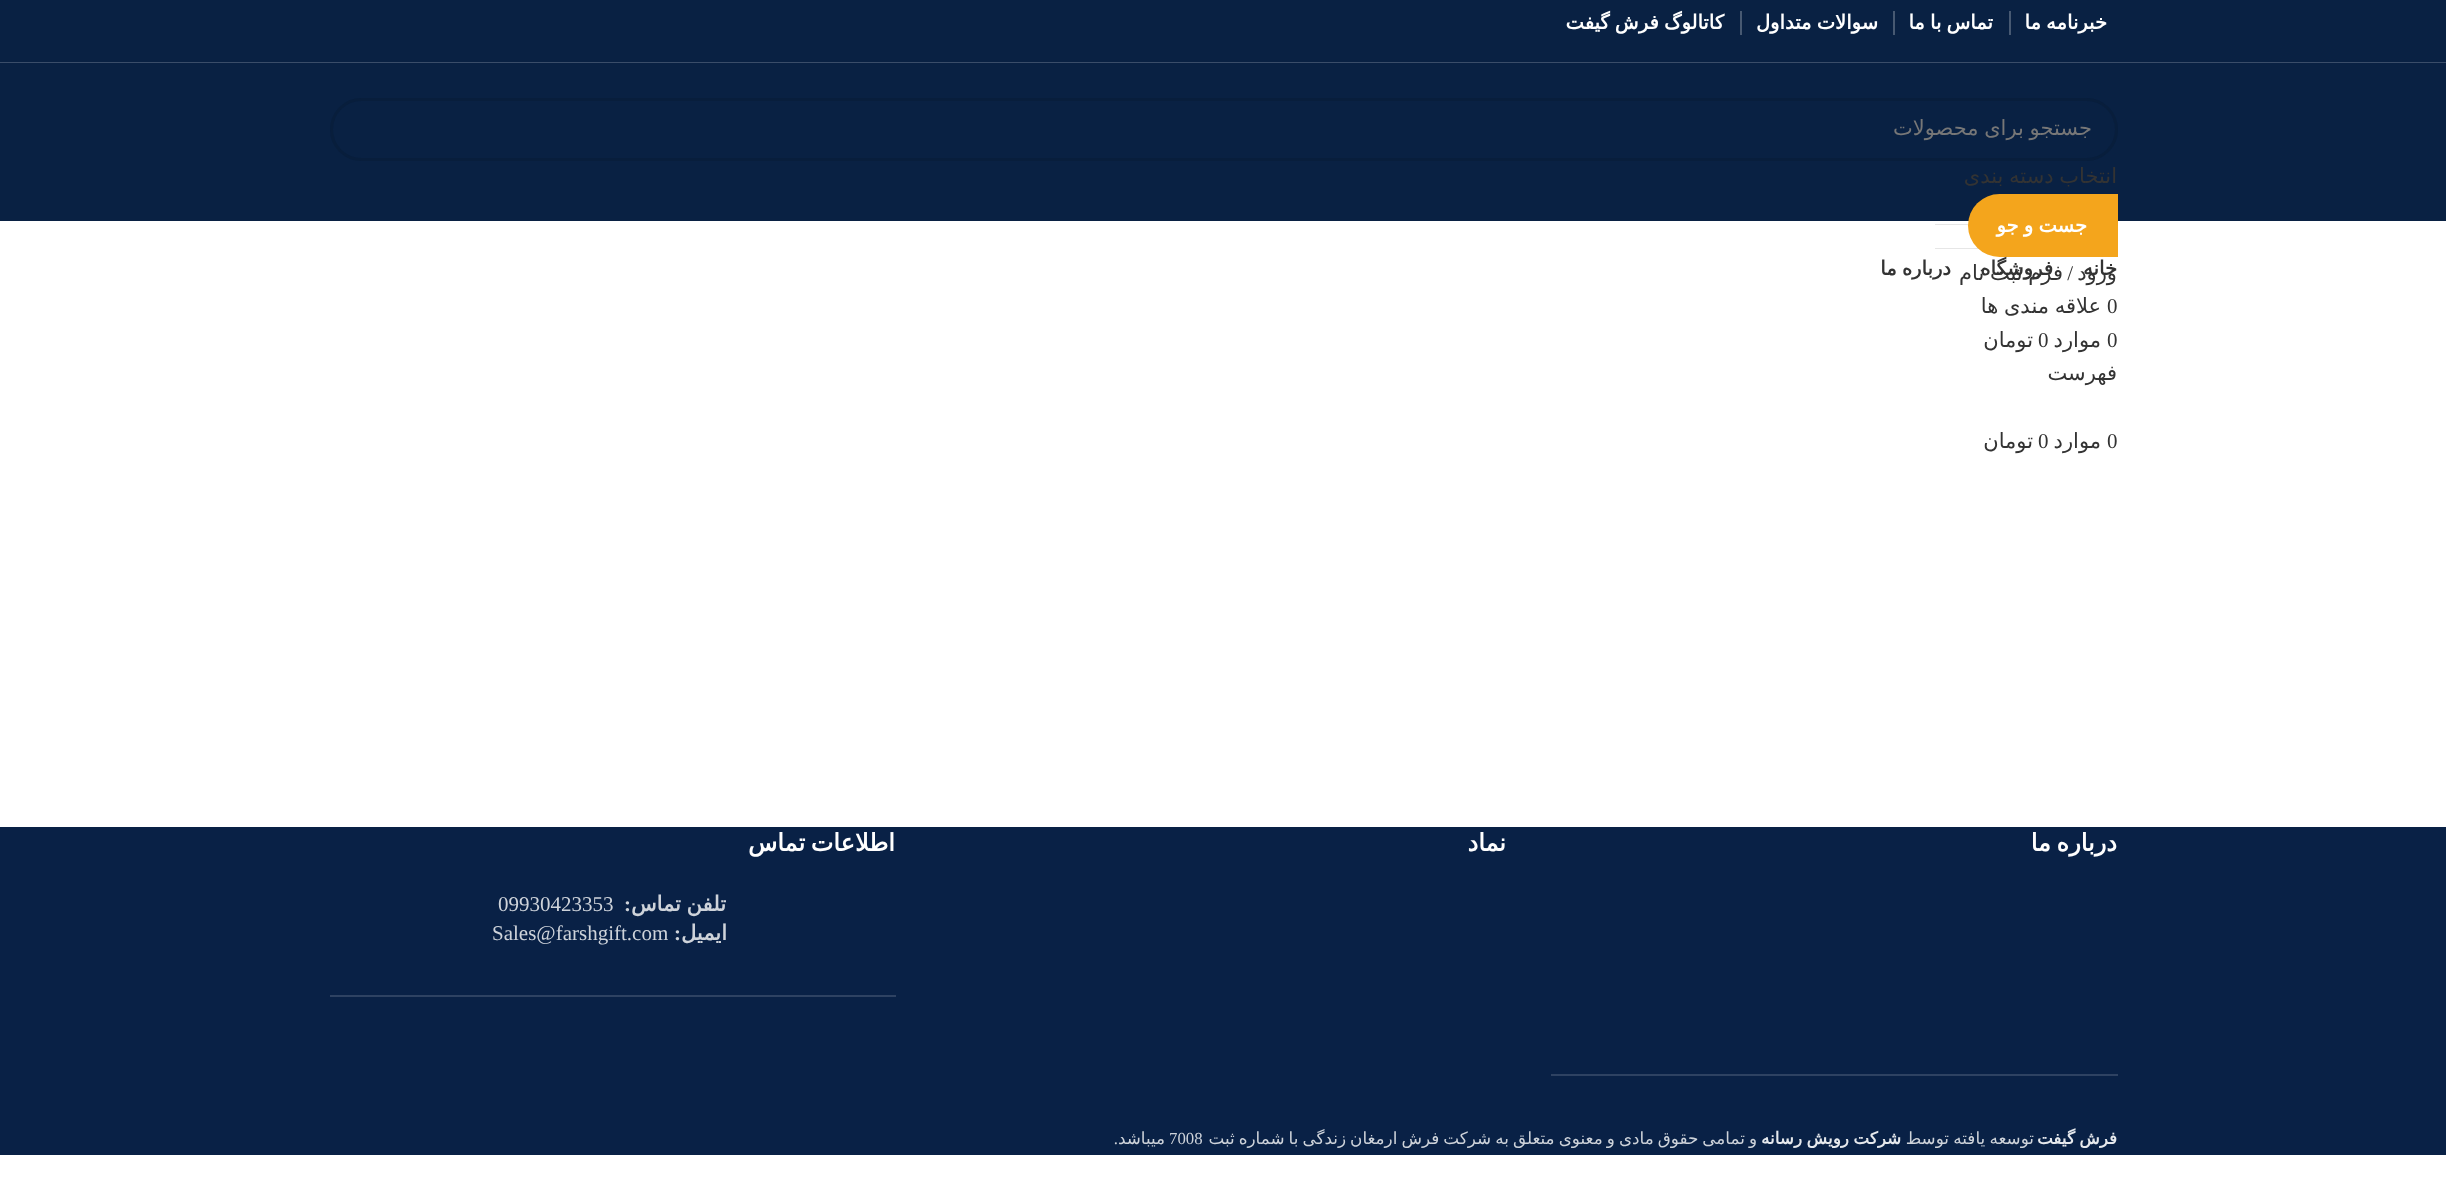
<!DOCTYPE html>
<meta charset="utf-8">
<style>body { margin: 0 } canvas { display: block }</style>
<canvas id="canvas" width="2446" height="1178"></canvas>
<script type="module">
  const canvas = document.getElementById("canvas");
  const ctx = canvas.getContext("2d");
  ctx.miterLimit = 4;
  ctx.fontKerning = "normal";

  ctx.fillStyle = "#ffffff";
  ctx.fillRect(0, 0, 2446, 1178);
  ctx.fillStyle = "#092143";
  ctx.fillRect(0, 0, 2446, 62);
  ctx.fillStyle = "#3a4d69";
  ctx.fillRect(0, 62, 2446, 1);
  ctx.wordSpacing = "-1px";
  ctx.direction = "rtl";
  ctx.font = "bold 19.5px DejaVu Sans";
  ctx.fillStyle = "#ffffff";
  ctx.fillText("خبرنامه ما", 2107, 29);
  ctx.fillStyle = "#475972";
  ctx.fillRect(2009, 11, 2, 24);
  ctx.fillStyle = "#ffffff";
  ctx.fillText("تماس با ما", 1993, 29);
  ctx.fillStyle = "#475972";
  ctx.fillRect(1893, 11, 2, 24);
  ctx.fillStyle = "#ffffff";
  ctx.fillText("سوالات متداول", 1878, 29);
  ctx.fillStyle = "#475972";
  ctx.fillRect(1740, 11, 2, 24);
  ctx.fillStyle = "#ffffff";
  ctx.fillText("کاتالوگ فرش گیفت", 1724, 29);
  ctx.fillStyle = "#092143";
  ctx.fillRect(0, 63, 2446, 158);
  ctx.beginPath();
  ctx.roundRect(331.5, 99.5, 1785, 60, 30);
  ctx.strokeStyle = "#081e3c";
  ctx.lineWidth = 3;
  ctx.stroke();
  ctx.font = "21px DejaVu Sans";
  ctx.fillStyle = "#777777";
  ctx.fillText("جستجو برای محصولات", 2092, 135);
  ctx.fillStyle = "#333333";
  ctx.fillText("انتخاب دسته بندی", 2117, 183);
  ctx.fillStyle = "#e6e6e6";
  ctx.beginPath();
  ctx.moveTo(1935, 224);
  ctx.lineTo(2118, 224);
  ctx.lineTo(2116, 225);
  ctx.lineTo(1935, 225);
  ctx.closePath();
  ctx.fill();
  ctx.beginPath();
  ctx.moveTo(2118, 249);
  ctx.lineTo(1935, 249);
  ctx.lineTo(1935, 248);
  ctx.lineTo(2116, 248);
  ctx.closePath();
  ctx.fill();
  ctx.fillStyle = "#f4a51c";
  ctx.beginPath();
  ctx.roundRect(1968, 194, 150, 63, [31.5, 0, 0, 31.5]);
  ctx.fill();
  ctx.font = "bold 19.5px DejaVu Sans";
  ctx.fillStyle = "#ffffff";
  ctx.fillText("جست و جو", 2087, 232);
  ctx.wordSpacing = "0px";
  ctx.font = "21px DejaVu Sans";
  ctx.fillStyle = "#333333";
  ctx.fillText("ورود", 2117, 280);
  ctx.font = "21px Liberation Serif";
  ctx.fillText("/", 2073, 280);
  ctx.wordSpacing = "-1px";
  ctx.font = "21px DejaVu Sans";
  ctx.fillText("فرم ثبت نام", 2063, 280);
  ctx.wordSpacing = "0px";
  ctx.direction = "ltr";
  ctx.font = "21px Liberation Serif";
  ctx.fillText("0", 2107, 313);
  ctx.wordSpacing = "-1px";
  ctx.direction = "rtl";
  ctx.font = "21px DejaVu Sans";
  ctx.fillText("علاقه مندی ها", 2101, 313);
  ctx.wordSpacing = "0px";
  ctx.direction = "ltr";
  ctx.font = "21px Liberation Serif";
  ctx.fillText("0", 2107, 347);
  ctx.direction = "rtl";
  ctx.font = "21px DejaVu Sans";
  ctx.fillText("موارد", 2101, 347);
  ctx.direction = "ltr";
  ctx.font = "21px Liberation Serif";
  ctx.fillText("0", 2038, 347);
  ctx.direction = "rtl";
  ctx.font = "21px DejaVu Sans";
  ctx.fillText("تومان", 2033, 347);
  ctx.fillText("فهرست", 2117, 380);
  ctx.direction = "ltr";
  ctx.font = "21px Liberation Serif";
  ctx.fillText("0", 2107, 448);
  ctx.direction = "rtl";
  ctx.font = "21px DejaVu Sans";
  ctx.fillText("موارد", 2101, 448);
  ctx.direction = "ltr";
  ctx.font = "21px Liberation Serif";
  ctx.fillText("0", 2038, 448);
  ctx.direction = "rtl";
  ctx.font = "21px DejaVu Sans";
  ctx.fillText("تومان", 2033, 448);
  ctx.font = "bold 19.5px DejaVu Sans";
  ctx.fillText("خانه", 2117, 275);
  ctx.fillText("فروشگاه", 2053, 275);
  ctx.wordSpacing = "-1px";
  ctx.fillText("درباره ما", 1951, 275);
  ctx.fillStyle = "#092146";
  ctx.fillRect(0, 827, 2446, 328);
  ctx.fillStyle = "#2e4262";
  ctx.fillRect(1551, 1074, 567, 2);
  ctx.wordSpacing = "-2px";
  ctx.font = "bold 24px DejaVu Sans";
  ctx.fillStyle = "#ffffff";
  ctx.fillText("درباره ما", 2117, 851);
  ctx.wordSpacing = "0px";
  ctx.fillText("نماد", 1506, 851);
  ctx.fillStyle = "#2e4262";
  ctx.fillRect(330, 995, 566, 2);
  ctx.wordSpacing = "-2px";
  ctx.fillStyle = "#ffffff";
  ctx.fillText("اطلاعات تماس", 895, 851);
  ctx.wordSpacing = "-1px";
  ctx.font = "bold 21px DejaVu Sans";
  ctx.fillStyle = "#ced3da";
  ctx.fillText("تلفن تماس", 726, 911);
  ctx.wordSpacing = "0px";
  ctx.font = "bold 21px Liberation Serif";
  ctx.fillText(":", 631, 911);
  ctx.direction = "ltr";
  ctx.font = "21px Liberation Serif";
  ctx.fillText("09930423353", 498, 911);
  ctx.direction = "rtl";
  ctx.font = "bold 21px DejaVu Sans";
  ctx.fillText("ایمیل", 727, 940);
  ctx.font = "bold 21px Liberation Serif";
  ctx.fillText(":", 681, 940);
  ctx.direction = "ltr";
  ctx.font = "21px Liberation Serif";
  ctx.fillText("Sales@farshgift.com", 492, 940);
  ctx.wordSpacing = "-1px";
  ctx.direction = "rtl";
  ctx.font = "bold 16.8px DejaVu Sans";
  ctx.fillStyle = "#e6e9ed";
  ctx.fillText("فرش گیفت", 2117, 1144);
  ctx.font = "16.8px DejaVu Sans";
  ctx.fillStyle = "#ced3da";
  ctx.fillText("توسعه یافته توسط", 2034, 1144);
  ctx.font = "bold 16.8px DejaVu Sans";
  ctx.fillStyle = "#e6e9ed";
  ctx.fillText("شرکت رویش", 1901, 1144);
  ctx.wordSpacing = "0px";
  ctx.fillText("رسانه", 1802, 1144);
  ctx.wordSpacing = "-1.25px";
  ctx.font = "16.8px DejaVu Sans";
  ctx.fillStyle = "#ced3da";
  ctx.fillText("و تمامی حقوق مادی و معنوی متعلق به شرکت فرش ارمغان زندگی با شماره ثبت", 1757, 1144);
  ctx.wordSpacing = "0px";
  ctx.direction = "ltr";
  ctx.font = "16.8px Liberation Serif";
  ctx.fillText("7008", 1169, 1144);
  ctx.direction = "rtl";
  ctx.font = "16.8px DejaVu Sans";
  ctx.fillText("میباشد", 1165, 1144);
  ctx.font = "16.8px Liberation Serif";
  ctx.fillText(".", 1118, 1144);
</script>
